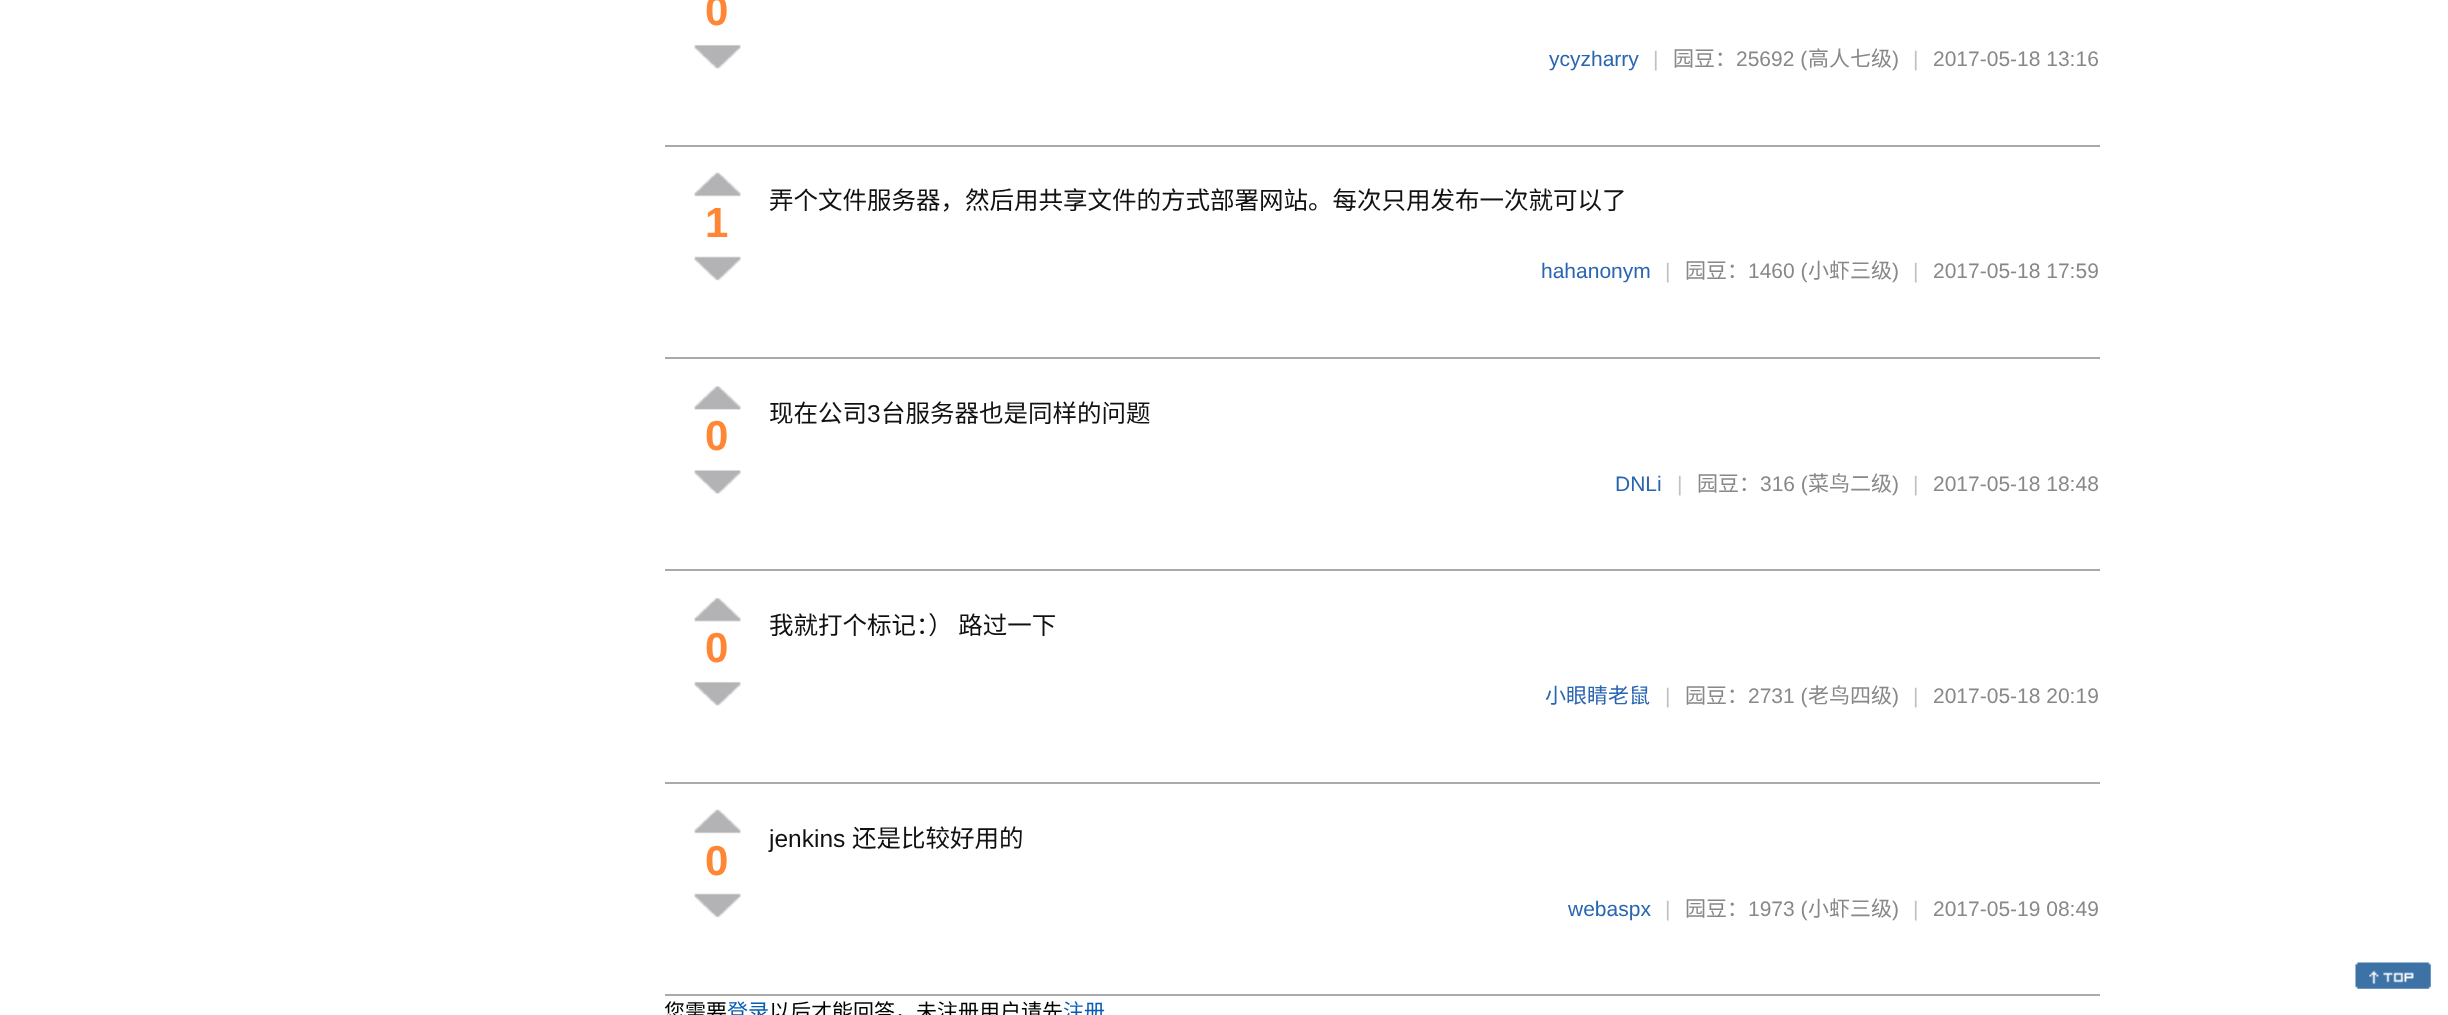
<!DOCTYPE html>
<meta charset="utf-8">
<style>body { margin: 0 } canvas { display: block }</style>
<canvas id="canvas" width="2448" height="1015"></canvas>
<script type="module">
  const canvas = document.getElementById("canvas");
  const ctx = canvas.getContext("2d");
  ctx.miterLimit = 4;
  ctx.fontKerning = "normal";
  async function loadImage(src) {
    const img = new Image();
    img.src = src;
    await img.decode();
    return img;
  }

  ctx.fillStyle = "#ffffff";
  ctx.fillRect(0, 0, 2448, 1015);
  ctx.fillStyle = "#aaaaaa";
  ctx.fillRect(665, 145, 1435, 2);
  ctx.font = "bold 42px Liberation Sans";
  ctx.fillStyle = "#ff8635";
  ctx.fillText("0", 705, 25);
  ctx.drawImage(await loadImage("img1.png"), 694, 44, 47, 25);
  ctx.font = "21px Liberation Sans";
  ctx.fillStyle = "#2965b1";
  ctx.fillText("ycyzharry", 1549, 66);
  ctx.fillStyle = "#c1c1c1";
  ctx.fillText("|", 1653, 66);
  ctx.font = "21px Noto Sans CJK SC";
  ctx.fillStyle = "#888888";
  ctx.fillText("园豆：", 1673, 66);
  ctx.font = "21px Liberation Sans";
  ctx.fillText("25692 (", 1736, 66);
  ctx.font = "21px Noto Sans CJK SC";
  ctx.fillText("高人七级", 1808, 66);
  ctx.font = "21px Liberation Sans";
  ctx.fillText(")", 1892, 66);
  ctx.fillStyle = "#c1c1c1";
  ctx.fillText("|", 1913, 66);
  ctx.fillStyle = "#888888";
  ctx.fillText("2017-05-18 13:16", 1933, 66);
  ctx.fillStyle = "#aaaaaa";
  ctx.fillRect(665, 357, 1435, 2);
  ctx.drawImage(await loadImage("img2.png"), 694, 172, 47, 25);
  ctx.font = "bold 42px Liberation Sans";
  ctx.fillStyle = "#ff8635";
  ctx.fillText("1", 705, 237);
  ctx.drawImage(await loadImage("img3.png"), 694, 256, 47, 25);
  ctx.font = "24.5px Noto Sans CJK SC";
  ctx.fillStyle = "#111111";
  ctx.fillText("弄个文件服务器，然后用共享文件的方式部署网站。每次只用发布一次就可以了", 769, 209);
  ctx.font = "21px Liberation Sans";
  ctx.fillStyle = "#2965b1";
  ctx.fillText("hahanonym", 1541, 278);
  ctx.fillStyle = "#c1c1c1";
  ctx.fillText("|", 1665, 278);
  ctx.font = "21px Noto Sans CJK SC";
  ctx.fillStyle = "#888888";
  ctx.fillText("园豆：", 1685, 278);
  ctx.font = "21px Liberation Sans";
  ctx.fillText("1460 (", 1748, 278);
  ctx.font = "21px Noto Sans CJK SC";
  ctx.fillText("小虾三级", 1808, 278);
  ctx.font = "21px Liberation Sans";
  ctx.fillText(")", 1892, 278);
  ctx.fillStyle = "#c1c1c1";
  ctx.fillText("|", 1913, 278);
  ctx.fillStyle = "#888888";
  ctx.fillText("2017-05-18 17:59", 1933, 278);
  ctx.fillStyle = "#aaaaaa";
  ctx.fillRect(665, 569, 1435, 2);
  ctx.drawImage(await loadImage("img4.png"), 694, 386, 47, 24);
  ctx.font = "bold 42px Liberation Sans";
  ctx.fillStyle = "#ff8635";
  ctx.fillText("0", 705, 450);
  ctx.drawImage(await loadImage("img5.png"), 694, 470, 47, 24);
  ctx.font = "24.5px Noto Sans CJK SC";
  ctx.fillStyle = "#111111";
  ctx.fillText("现在公司", 769, 422);
  ctx.font = "24.5px Liberation Sans";
  ctx.fillText("3", 867, 422);
  ctx.font = "24.5px Noto Sans CJK SC";
  ctx.fillText("台服务器也是同样的问题", 881, 422);
  ctx.font = "21px Liberation Sans";
  ctx.fillStyle = "#2965b1";
  ctx.fillText("DNLi", 1615, 491);
  ctx.fillStyle = "#c1c1c1";
  ctx.fillText("|", 1677, 491);
  ctx.font = "21px Noto Sans CJK SC";
  ctx.fillStyle = "#888888";
  ctx.fillText("园豆：", 1697, 491);
  ctx.font = "21px Liberation Sans";
  ctx.fillText("316 (", 1760, 491);
  ctx.font = "21px Noto Sans CJK SC";
  ctx.fillText("菜鸟二级", 1808, 491);
  ctx.font = "21px Liberation Sans";
  ctx.fillText(")", 1892, 491);
  ctx.fillStyle = "#c1c1c1";
  ctx.fillText("|", 1913, 491);
  ctx.fillStyle = "#888888";
  ctx.fillText("2017-05-18 18:48", 1933, 491);
  ctx.fillStyle = "#aaaaaa";
  ctx.fillRect(665, 782, 1435, 2);
  ctx.drawImage(await loadImage("img6.png"), 694, 598, 47, 24);
  ctx.font = "bold 42px Liberation Sans";
  ctx.fillStyle = "#ff8635";
  ctx.fillText("0", 705, 662);
  ctx.drawImage(await loadImage("img1.png"), 694, 681, 47, 25);
  ctx.font = "24.5px Noto Sans CJK SC";
  ctx.fillStyle = "#111111";
  ctx.fillText("我就打个标记：） 路过一下", 769, 634);
  ctx.font = "21px Noto Sans CJK SC";
  ctx.fillStyle = "#2965b1";
  ctx.fillText("小眼睛老鼠", 1545, 703);
  ctx.font = "21px Liberation Sans";
  ctx.fillStyle = "#c1c1c1";
  ctx.fillText("|", 1665, 703);
  ctx.font = "21px Noto Sans CJK SC";
  ctx.fillStyle = "#888888";
  ctx.fillText("园豆：", 1685, 703);
  ctx.font = "21px Liberation Sans";
  ctx.fillText("2731 (", 1748, 703);
  ctx.font = "21px Noto Sans CJK SC";
  ctx.fillText("老鸟四级", 1808, 703);
  ctx.font = "21px Liberation Sans";
  ctx.fillText(")", 1892, 703);
  ctx.fillStyle = "#c1c1c1";
  ctx.fillText("|", 1913, 703);
  ctx.fillStyle = "#888888";
  ctx.fillText("2017-05-18 20:19", 1933, 703);
  ctx.fillStyle = "#aaaaaa";
  ctx.fillRect(665, 994, 1435, 2);
  ctx.drawImage(await loadImage("img2.png"), 694, 809, 47, 25);
  ctx.font = "bold 42px Liberation Sans";
  ctx.fillStyle = "#ff8635";
  ctx.fillText("0", 705, 875);
  ctx.drawImage(await loadImage("img3.png"), 694, 893, 47, 25);
  ctx.font = "24.5px Liberation Sans";
  ctx.fillStyle = "#111111";
  ctx.fillText("jenkins", 769, 847);
  ctx.font = "24.5px Noto Sans CJK SC";
  ctx.fillText("还是比较好用的", 852, 847);
  ctx.font = "21px Liberation Sans";
  ctx.fillStyle = "#2965b1";
  ctx.fillText("webaspx", 1568, 916);
  ctx.fillStyle = "#c1c1c1";
  ctx.fillText("|", 1665, 916);
  ctx.font = "21px Noto Sans CJK SC";
  ctx.fillStyle = "#888888";
  ctx.fillText("园豆：", 1685, 916);
  ctx.font = "21px Liberation Sans";
  ctx.fillText("1973 (", 1748, 916);
  ctx.font = "21px Noto Sans CJK SC";
  ctx.fillText("小虾三级", 1808, 916);
  ctx.font = "21px Liberation Sans";
  ctx.fillText(")", 1892, 916);
  ctx.fillStyle = "#c1c1c1";
  ctx.fillText("|", 1913, 916);
  ctx.fillStyle = "#888888";
  ctx.fillText("2017-05-19 08:49", 1933, 916);
  ctx.font = "21px Noto Sans CJK SC";
  ctx.fillStyle = "#000000";
  ctx.fillText("您需要", 664, 1019);
  ctx.fillStyle = "#075db3";
  ctx.fillText("登录", 727, 1019);
  ctx.fillStyle = "#000000";
  ctx.fillText("以后才能回答，未注册用户请先", 769, 1019);
  ctx.fillStyle = "#075db3";
  ctx.fillText("注册", 1063, 1019);
  ctx.drawImage(await loadImage("img7.png"), 2355, 962, 76, 27);
</script>
